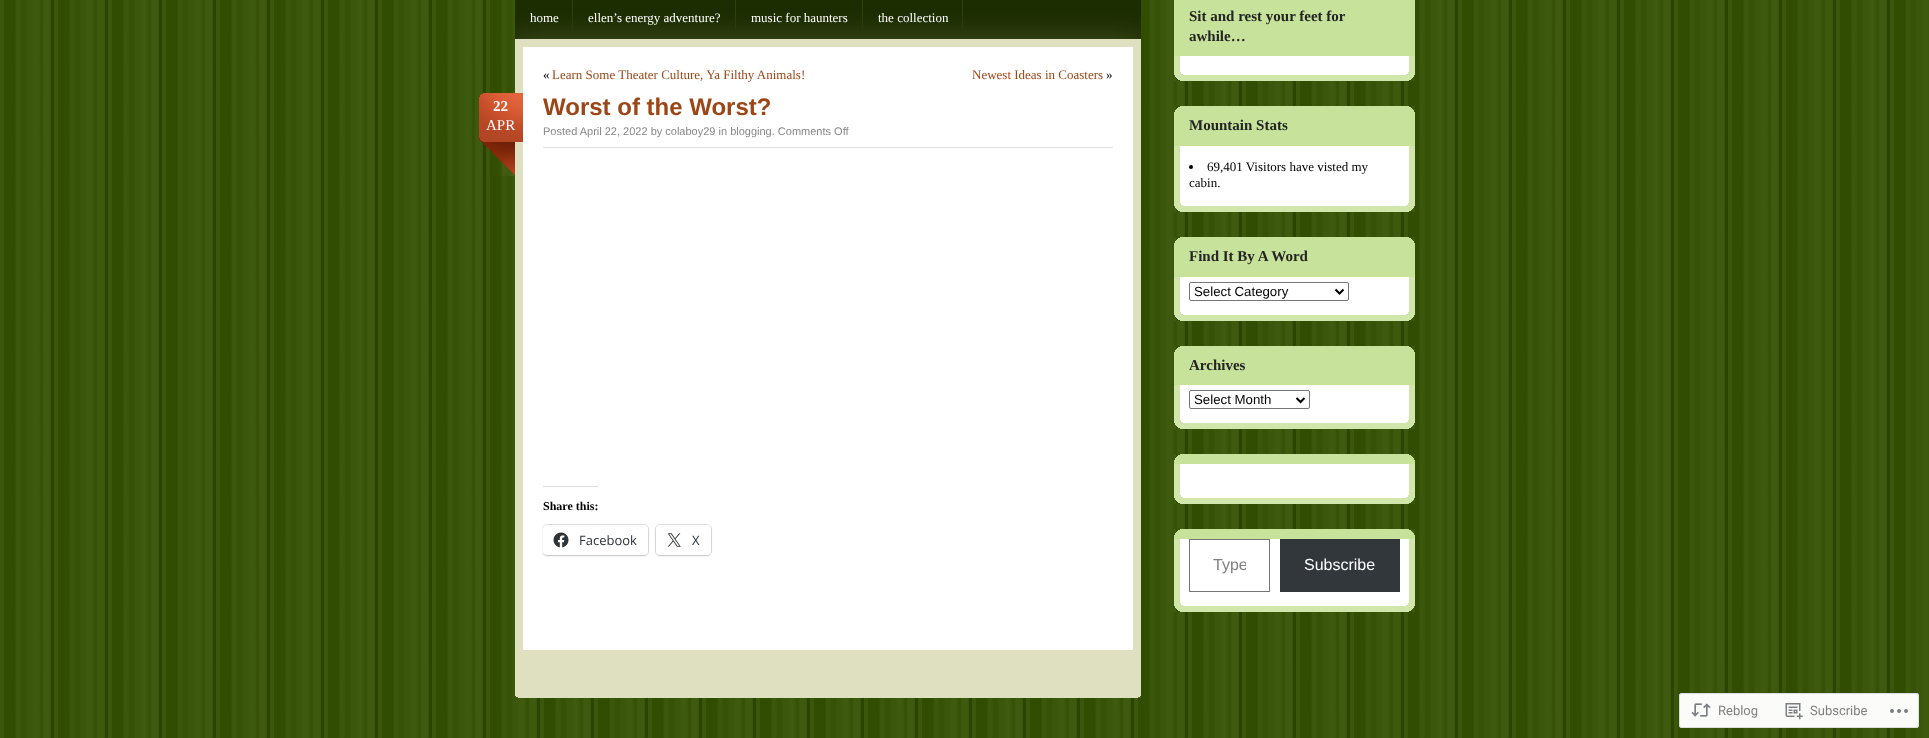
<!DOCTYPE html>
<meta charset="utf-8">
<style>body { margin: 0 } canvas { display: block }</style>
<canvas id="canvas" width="1929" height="738"></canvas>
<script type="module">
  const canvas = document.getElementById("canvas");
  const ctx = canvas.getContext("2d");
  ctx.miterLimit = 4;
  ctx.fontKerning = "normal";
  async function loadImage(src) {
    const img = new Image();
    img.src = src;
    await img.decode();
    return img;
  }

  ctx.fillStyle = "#ffffff";
  ctx.fillRect(0, 0, 1929, 738);
  ctx.drawImage(await loadImage("img1.png"), 0, 0, 1929, 738);
  ctx.drawImage(await loadImage("img2.png"), 515, 0, 626, 39);
  ctx.drawImage(await loadImage("img3.png"), 572, 0, 1, 29);
  ctx.font = "13px Liberation Serif";
  ctx.fillText("home", 530, 22);
  ctx.drawImage(await loadImage("img3.png"), 735, 0, 1, 29);
  ctx.fillText("ellen’s energy adventure?", 588, 22);
  ctx.drawImage(await loadImage("img3.png"), 862, 0, 1, 29);
  ctx.fillText("music for haunters", 751, 22);
  ctx.drawImage(await loadImage("img3.png"), 962, 0, 1, 29);
  ctx.fillText("the collection", 878, 22);
  ctx.fillStyle = "#dee0bf";
  ctx.fillRect(515, 39, 626, 657);
  ctx.drawImage(await loadImage("img4.png"), 515, 696, 626, 2);
  ctx.fillStyle = "#ffffff";
  ctx.fillRect(523, 47, 610, 603);
  ctx.fillStyle = "#000000";
  ctx.fillText("«", 543, 79);
  ctx.fillStyle = "#9c4617";
  ctx.fillText("Learn Some Theater Culture, Ya Filthy Animals!", 552, 79);
  ctx.fillText("Newest Ideas in Coasters", 972, 79);
  ctx.fillStyle = "#000000";
  ctx.fillText("»", 1106, 79);
  ctx.drawImage(await loadImage("img5.png"), 479, 93, 44, 83);
  ctx.font = "bold 15px Liberation Serif";
  ctx.fillStyle = "#ffffff";
  ctx.fillText("22", 493, 111);
  ctx.font = "15px Liberation Serif";
  ctx.fillText("APR", 486, 130);
  ctx.font = "bold 24px Liberation Sans";
  ctx.fillStyle = "#9c4617";
  ctx.fillText("Worst of the Worst?", 543, 115);
  ctx.fillStyle = "#dfdfdf";
  ctx.fillRect(543, 147, 570, 1);
  ctx.font = "11px Liberation Sans";
  ctx.fillStyle = "#878787";
  ctx.fillText("Posted April 22, 2022 by colaboy29 in blogging. Comments Off", 543, 135);
  ctx.fillStyle = "#dcdcde";
  ctx.fillRect(543, 486, 55, 1);
  ctx.font = "bold 12px Liberation Serif";
  ctx.fillStyle = "#000000";
  ctx.fillText("Share this:", 543, 510);
  ctx.save();
  ctx.beginPath();
  ctx.rect(543, 148, 570, 482);
  ctx.clip();
  ctx.beginPath();
  ctx.roundRect(542.5, 524.5, 106, 31, 4.5);
  ctx.strokeStyle = "#e0e0e0";
  ctx.stroke();
  ctx.restore();
  ctx.fillStyle = "rgba(0, 0, 0, 0.12)";
  ctx.filter = "blur(1px)";
  ctx.beginPath();
  ctx.roundRect(543, 526, 105, 30, 4);
  ctx.fill();
  ctx.filter = "none";
  ctx.fillStyle = "#ffffff";
  ctx.beginPath();
  ctx.roundRect(543, 525, 105, 30, 4);
  ctx.fill();
  ctx.drawImage(await loadImage("img6.png"), 553, 532, 16, 16);
  ctx.font = "13px Open Sans";
  ctx.fillStyle = "#2c3338";
  ctx.fillText("Facebook", 579, 545);
  ctx.beginPath();
  ctx.roundRect(655.5, 524.5, 56, 31, 4.5);
  ctx.strokeStyle = "#e0e0e0";
  ctx.stroke();
  ctx.fillStyle = "rgba(0, 0, 0, 0.12)";
  ctx.filter = "blur(1px)";
  ctx.beginPath();
  ctx.roundRect(656, 526, 55, 30, 4);
  ctx.fill();
  ctx.filter = "none";
  ctx.fillStyle = "#ffffff";
  ctx.beginPath();
  ctx.roundRect(656, 525, 55, 30, 4);
  ctx.fill();
  ctx.drawImage(await loadImage("img7.png"), 667, 533, 14, 14);
  ctx.fillStyle = "#2c3338";
  ctx.fillText("X", 692, 545);
  ctx.drawImage(await loadImage("img8.png"), 1174, 56, 241, 25);
  ctx.fillStyle = "#c6e29b";
  ctx.fillRect(1174, 0, 241, 56);
  ctx.font = "bold 15px Liberation Serif";
  ctx.fillStyle = "#252525";
  ctx.fillText("Sit and rest your feet for", 1189, 21);
  ctx.fillText("awhile…", 1189, 41);
  ctx.drawImage(await loadImage("img9.png"), 1174, 146, 241, 66);
  ctx.drawImage(await loadImage("img10.png"), 1174, 106, 241, 10);
  ctx.fillStyle = "#c6e29b";
  ctx.fillRect(1174, 116, 241, 30);
  ctx.fillStyle = "#252525";
  ctx.fillText("Mountain Stats", 1189, 130);
  ctx.fillStyle = "#000000";
  ctx.beginPath();
  ctx.arc(1191, 167, 2, 0, Math.PI * 2);
  ctx.fill();
  ctx.font = "13px Liberation Serif";
  ctx.fillText("69,401 Visitors have visted my", 1207, 171);
  ctx.fillText("cabin.", 1189, 187);
  ctx.drawImage(await loadImage("img11.png"), 1174, 277, 241, 44);
  ctx.drawImage(await loadImage("img10.png"), 1174, 237, 241, 10);
  ctx.fillStyle = "#c6e29b";
  ctx.fillRect(1174, 247, 241, 30);
  ctx.font = "bold 15px Liberation Serif";
  ctx.fillStyle = "#252525";
  ctx.fillText("Find It By A Word", 1189, 261);
  ctx.beginPath();
  ctx.roundRect(1189.5, 282.5, 159, 18, 1.5);
  ctx.strokeStyle = "#767676";
  ctx.stroke();
  ctx.beginPath();
  ctx.moveTo(1335.5, 289.5);
  ctx.lineTo(1339.5, 293.5);
  ctx.lineTo(1343.5, 289.5);
  ctx.strokeStyle = "#000000";
  ctx.lineWidth = 2;
  ctx.stroke();
  ctx.font = "13.25px Liberation Sans";
  ctx.fillStyle = "#000000";
  ctx.fillText("Select Category", 1194, 296);
  ctx.drawImage(await loadImage("img12.png"), 1174, 385, 241, 44);
  ctx.drawImage(await loadImage("img10.png"), 1174, 346, 241, 10);
  ctx.fillStyle = "#c6e29b";
  ctx.fillRect(1174, 356, 241, 29);
  ctx.font = "bold 15px Liberation Serif";
  ctx.fillStyle = "#252525";
  ctx.fillText("Archives", 1189, 370);
  ctx.beginPath();
  ctx.roundRect(1189.5, 390.5, 120, 18, 1.5);
  ctx.strokeStyle = "#767676";
  ctx.lineWidth = 1;
  ctx.stroke();
  ctx.beginPath();
  ctx.moveTo(1296.5, 398);
  ctx.lineTo(1300.5, 402);
  ctx.lineTo(1304.5, 398);
  ctx.strokeStyle = "#000000";
  ctx.lineWidth = 2;
  ctx.stroke();
  ctx.font = "13.25px Liberation Sans";
  ctx.fillStyle = "#000000";
  ctx.fillText("Select Month", 1194, 404);
  ctx.drawImage(await loadImage("img13.png"), 1174, 464, 241, 40);
  ctx.drawImage(await loadImage("img10.png"), 1174, 454, 241, 10);
  ctx.drawImage(await loadImage("img14.png"), 1174, 539, 241, 73);
  ctx.drawImage(await loadImage("img10.png"), 1174, 529, 241, 10);
  ctx.strokeStyle = "#767676";
  ctx.lineWidth = 1;
  ctx.strokeRect(1189.5, 539.5, 80, 52);
  ctx.save();
  ctx.beginPath();
  ctx.rect(1213, 556, 33, 18);
  ctx.clip();
  ctx.font = "16px Liberation Sans";
  ctx.fillStyle = "#808080";
  ctx.fillText("Type", 1213, 570);
  ctx.restore();
  ctx.fillStyle = "#32373c";
  ctx.fillRect(1280, 539, 120, 53);
  ctx.font = "16px Liberation Sans";
  ctx.fillStyle = "#ffffff";
  ctx.fillText("Subscribe", 1304, 570);
  ctx.fillStyle = "rgba(255, 255, 255, 0.98)";
  ctx.beginPath();
  ctx.roundRect(1679, 693, 240, 35, 3);
  ctx.fill();
  ctx.beginPath();
  ctx.roundRect(1679.5, 693.5, 239, 34, 2.5);
  ctx.strokeStyle = "rgba(220, 220, 222, 0.98)";
  ctx.stroke();
  ctx.drawImage(await loadImage("img15.png"), 1691, 703, 20, 14);
  ctx.font = "13px Roboto";
  ctx.fillStyle = "#808080";
  ctx.fillText("Reblog", 1718, 715);
  ctx.drawImage(await loadImage("img16.png"), 1785, 703, 18, 17);
  ctx.fillText("Subscribe", 1810, 715);
  ctx.drawImage(await loadImage("img17.png"), 1890, 709, 18, 4);
</script>
